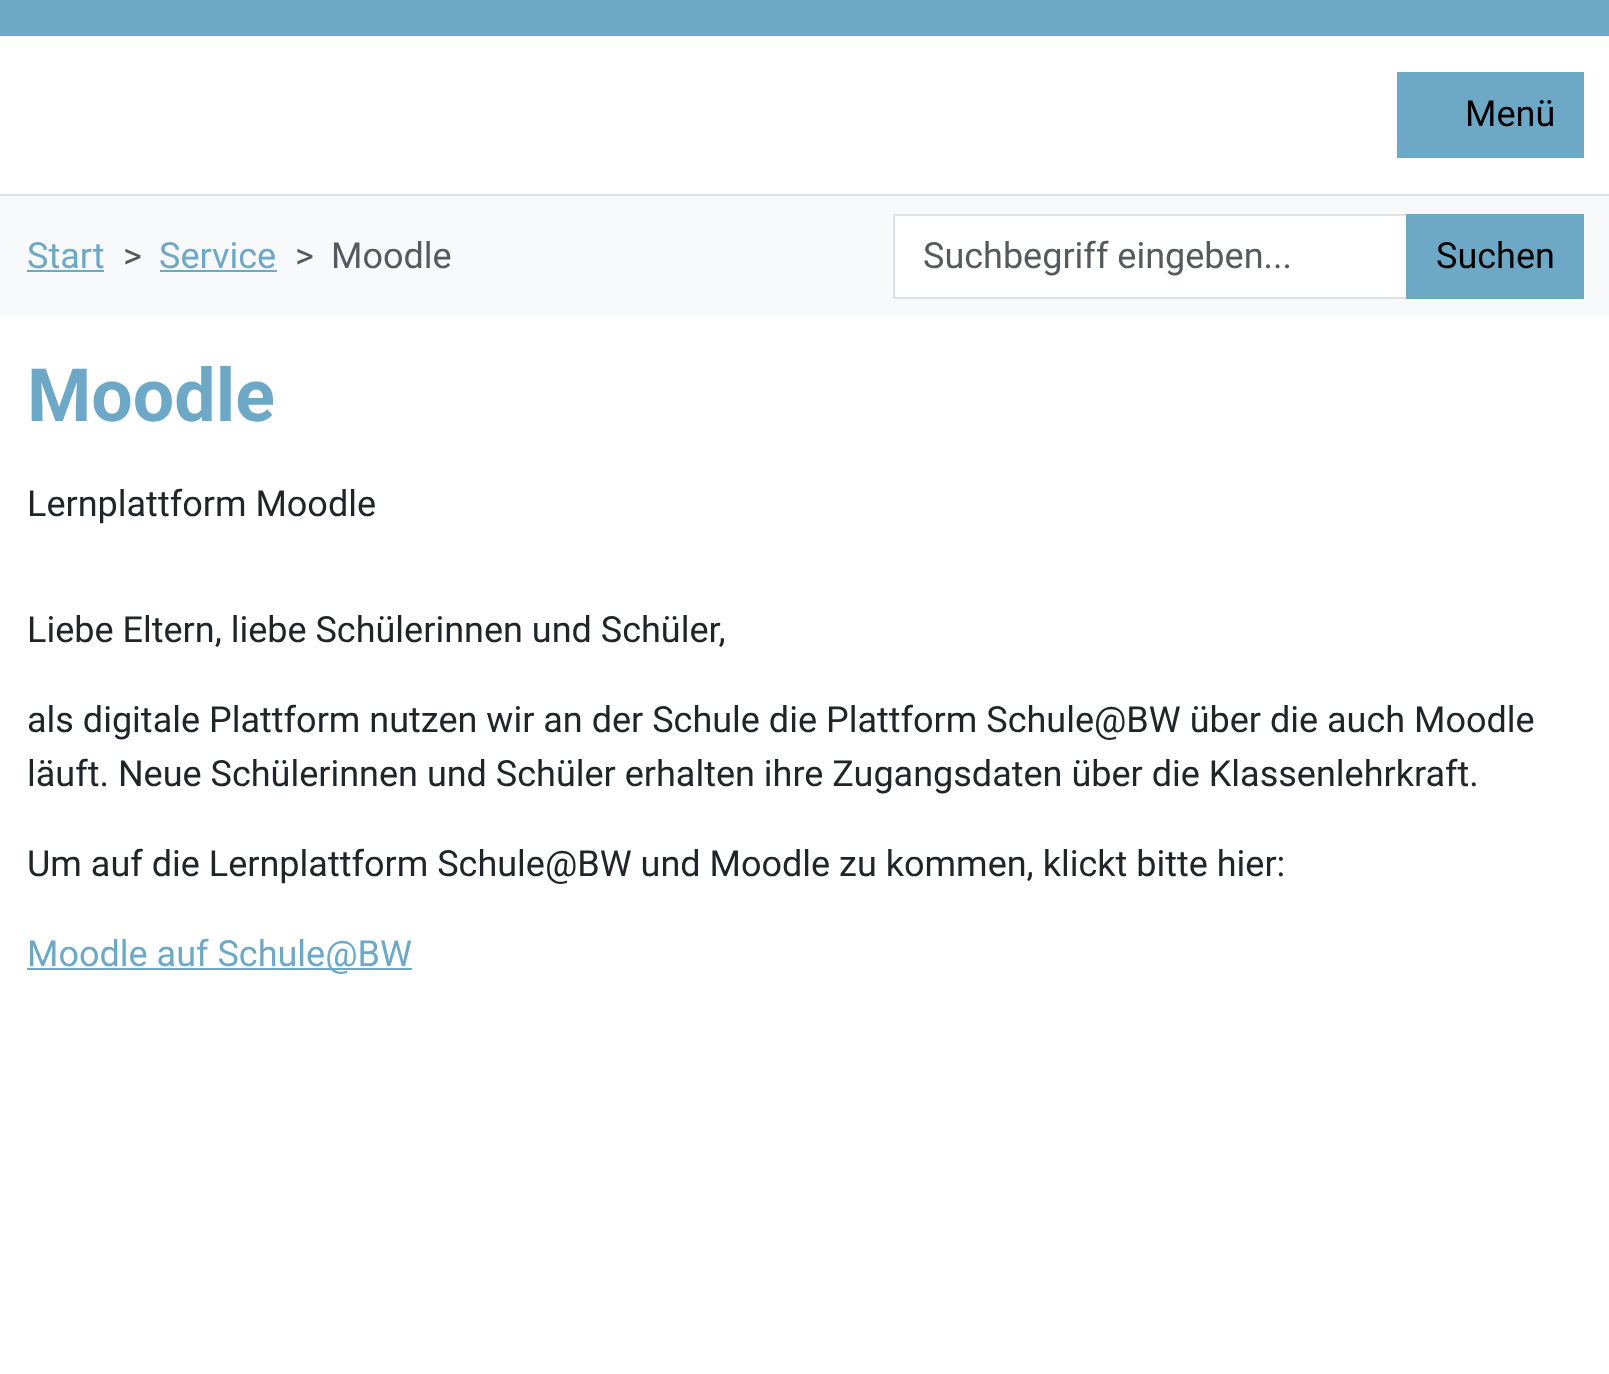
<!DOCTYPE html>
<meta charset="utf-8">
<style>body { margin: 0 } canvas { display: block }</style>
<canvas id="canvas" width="1609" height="1374"></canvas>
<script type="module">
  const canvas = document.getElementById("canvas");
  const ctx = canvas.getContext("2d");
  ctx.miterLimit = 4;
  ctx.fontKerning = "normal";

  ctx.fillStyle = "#ffffff";
  ctx.fillRect(0, 0, 1609, 1374);
  ctx.fillStyle = "#dee2e6";
  ctx.fillRect(0, 194, 1609, 2);
  ctx.fillStyle = "#6da8c6";
  ctx.fillRect(0, 0, 1609, 36);
  ctx.fillRect(1397, 72, 187, 86);
  ctx.font = "36px Roboto";
  ctx.fillStyle = "#000000";
  ctx.fillText("Menü", 1465, 126);
  ctx.fillStyle = "#f8f9fa";
  ctx.fillRect(0, 196, 1609, 121);
  ctx.fillStyle = "#6da8c6";
  ctx.fillText("Start", 27, 268);
  ctx.fillRect(27, 270, 77, 2);
  ctx.fillStyle = "#575a5d";
  ctx.fillText(">", 123, 268);
  ctx.fillStyle = "#6da8c6";
  ctx.fillText("Service", 159, 268);
  ctx.fillRect(160, 270, 117, 2);
  ctx.fillStyle = "#575a5d";
  ctx.fillText(">", 295, 268);
  ctx.fillText("Moodle", 331, 268);
  ctx.fillStyle = "#ffffff";
  ctx.fillRect(896, 216, 510, 81);
  ctx.strokeStyle = "#dee2e6";
  ctx.lineWidth = 2;
  ctx.strokeRect(894, 215, 514, 83);
  ctx.fillStyle = "#575a5d";
  ctx.fillText("Suchbegriff eingeben...", 923, 268);
  ctx.fillStyle = "#6da8c6";
  ctx.fillRect(1406, 214, 178, 85);
  ctx.fillStyle = "#000000";
  ctx.fillText("Suchen", 1436, 268);
  ctx.font = "bold 73.5px Roboto";
  ctx.fillStyle = "#6da8c6";
  ctx.fillText("Moodle", 27, 421);
  ctx.font = "36px Roboto";
  ctx.fillStyle = "#212529";
  ctx.fillText("Lernplattform Moodle", 27, 516);
  ctx.fillText("Liebe Eltern, liebe Schülerinnen und Schüler,", 27, 642);
  ctx.fillText("als digitale Plattform nutzen wir an der Schule die Plattform Schule@BW über die auch Moodle", 27, 732);
  ctx.fillText("läuft. Neue Schülerinnen und Schüler erhalten ihre Zugangsdaten über die Klassenlehrkraft.", 27, 786);
  ctx.fillText("Um auf die Lernplattform Schule@BW und Moodle zu kommen, klickt bitte hier:", 27, 876);
  ctx.fillStyle = "#6da8c6";
  ctx.fillRect(27, 968, 385, 2);
  ctx.fillText("Moodle auf Schule@BW", 27, 966);
</script>
